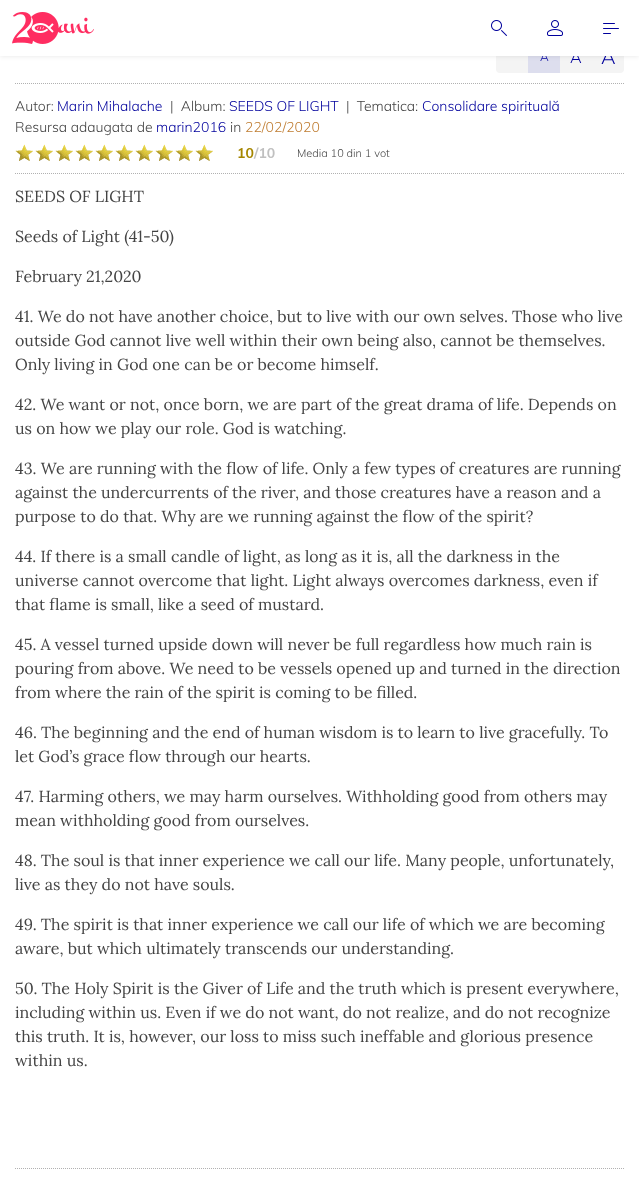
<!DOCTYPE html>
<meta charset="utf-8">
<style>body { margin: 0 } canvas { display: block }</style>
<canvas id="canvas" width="639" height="1179"></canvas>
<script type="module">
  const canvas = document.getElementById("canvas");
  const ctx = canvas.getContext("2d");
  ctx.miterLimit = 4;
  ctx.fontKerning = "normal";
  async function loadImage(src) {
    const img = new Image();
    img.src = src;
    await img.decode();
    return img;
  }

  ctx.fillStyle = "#ffffff";
  ctx.fillRect(0, 0, 639, 1179);
  ctx.fillStyle = "#f4f4f4";
  ctx.beginPath();
  ctx.roundRect(496, 41, 32, 32, [4, 0, 0, 4]);
  ctx.fill();
  ctx.fillStyle = "#dddeee";
  ctx.fillRect(528, 56, 32, 17);
  ctx.fillStyle = "#f4f4f4";
  ctx.fillRect(560, 56, 32, 17);
  ctx.beginPath();
  ctx.roundRect(592, 41, 32, 32, [0, 4, 4, 0]);
  ctx.fill();
  ctx.fillStyle = "rgba(0, 0, 0, 0.1)";
  ctx.filter = "blur(2.5px)";
  ctx.beginPath();
  ctx.rect(0, 0, 639, 56);
  ctx.fill();
  ctx.filter = "none";
  ctx.font = "300 12px Muli";
  ctx.fillStyle = "#00009c";
  ctx.fillText("A", 540, 61);
  ctx.font = "300 16px Muli";
  ctx.fillText("A", 570, 63);
  ctx.font = "300 20px Muli";
  ctx.fillText("A", 601, 64);
  ctx.fillStyle = "#ffffff";
  ctx.fillRect(0, 0, 639, 56);
  ctx.drawImage(await loadImage("img1.png"), 12, 12, 82, 32);
  ctx.drawImage(await loadImage("img2.png"), 491, 20, 16, 16);
  ctx.drawImage(await loadImage("img3.png"), 547, 20, 16, 16);
  ctx.drawImage(await loadImage("img4.png"), 603, 23, 16, 11);
  ctx.beginPath();
  ctx.moveTo(15, 83.5);
  ctx.lineTo(624, 83.5);
  ctx.strokeStyle = "#b1b1b1";
  ctx.setLineDash([1, 1]);
  ctx.stroke();
  ctx.beginPath();
  ctx.moveTo(15, 173.5);
  ctx.lineTo(624, 173.5);
  ctx.stroke();
  ctx.font = "300 14px Muli";
  ctx.fillStyle = "#444444";
  ctx.fillText("Autor:", 15, 111);
  ctx.fillStyle = "#00009c";
  ctx.fillText("Marin Mihalache", 57, 111);
  ctx.fillStyle = "#444444";
  ctx.fillText("|  Album:", 170, 111);
  ctx.fillStyle = "#00009c";
  ctx.fillText("SEEDS OF LIGHT", 229, 111);
  ctx.fillStyle = "#444444";
  ctx.fillText("|  Tematica:", 346, 111);
  ctx.fillStyle = "#00009c";
  ctx.fillText("Consolidare spirituală", 422, 111);
  ctx.fillStyle = "#444444";
  ctx.fillText("Resursa adaugata de", 15, 132);
  ctx.fillStyle = "#00009c";
  ctx.fillText("marin2016", 156, 132);
  ctx.fillStyle = "#444444";
  ctx.fillText("in", 230, 132);
  ctx.fillStyle = "#bf7c30";
  ctx.fillText("22/02/2020", 245, 132);
  ctx.drawImage(await loadImage("img6.png"), 16, 145, 197, 16);
  ctx.drawImage(await loadImage("img5.png"), 15, 144, 198, 17);
  ctx.font = "bold 14px Muli";
  ctx.fillStyle = "#a58600";
  ctx.fillText("10", 237, 158);
  ctx.fillStyle = "#c0c0c0";
  ctx.fillText("/10", 254, 158);
  ctx.font = "300 11px Muli";
  ctx.fillStyle = "#444444";
  ctx.fillText("Media 10 din 1 vot", 297, 157);
  ctx.font = "16px Lora";
  ctx.fillText("SEEDS OF LIGHT", 15, 202);
  ctx.fillText("Seeds of Light (41-50)", 15, 242);
  ctx.fillText("February 21,2020", 15, 282);
  ctx.fillText("41. We do not have another choice, but to live with our own selves. Those who live", 15, 322);
  ctx.fillText("outside God cannot live well within their own being also, cannot be themselves.", 15, 346);
  ctx.fillText("Only living in God one can be or become himself.", 15, 370);
  ctx.fillText("42. We want or not, once born, we are part of the great drama of life. Depends on", 15, 410);
  ctx.fillText("us on how we play our role. God is watching.", 15, 434);
  ctx.fillText("43. We are running with the flow of life. Only a few types of creatures are running", 15, 474);
  ctx.fillText("against the undercurrents of the river, and those creatures have a reason and a", 15, 498);
  ctx.fillText("purpose to do that. Why are we running against the flow of the spirit?", 15, 522);
  ctx.fillText("44. If there is a small candle of light, as long as it is, all the darkness in the", 15, 562);
  ctx.fillText("universe cannot overcome that light. Light always overcomes darkness, even if", 15, 586);
  ctx.fillText("that flame is small, like a seed of mustard.", 15, 610);
  ctx.fillText("45. A vessel turned upside down will never be full regardless how much rain is", 15, 650);
  ctx.fillText("pouring from above. We need to be vessels opened up and turned in the direction", 15, 674);
  ctx.fillText("from where the rain of the spirit is coming to be filled.", 15, 698);
  ctx.fillText("46. The beginning and the end of human wisdom is to learn to live gracefully. To", 15, 738);
  ctx.fillText("let God’s grace flow through our hearts.", 15, 762);
  ctx.fillText("47. Harming others, we may harm ourselves. Withholding good from others may", 15, 802);
  ctx.fillText("mean withholding good from ourselves.", 15, 826);
  ctx.fillText("48. The soul is that inner experience we call our life. Many people, unfortunately,", 15, 866);
  ctx.fillText("live as they do not have souls.", 15, 890);
  ctx.fillText("49. The spirit is that inner experience we call our life of which we are becoming", 15, 930);
  ctx.fillText("aware, but which ultimately transcends our understanding.", 15, 954);
  ctx.fillText("50. The Holy Spirit is the Giver of Life and the truth which is present everywhere,", 15, 994);
  ctx.fillText("including within us. Even if we do not want, do not realize, and do not recognize", 15, 1018);
  ctx.fillText("this truth. It is, however, our loss to miss such ineffable and glorious presence", 15, 1042);
  ctx.fillText("within us.", 15, 1066);
  ctx.beginPath();
  ctx.moveTo(15, 1168.5);
  ctx.lineTo(624, 1168.5);
  ctx.stroke();
</script>
